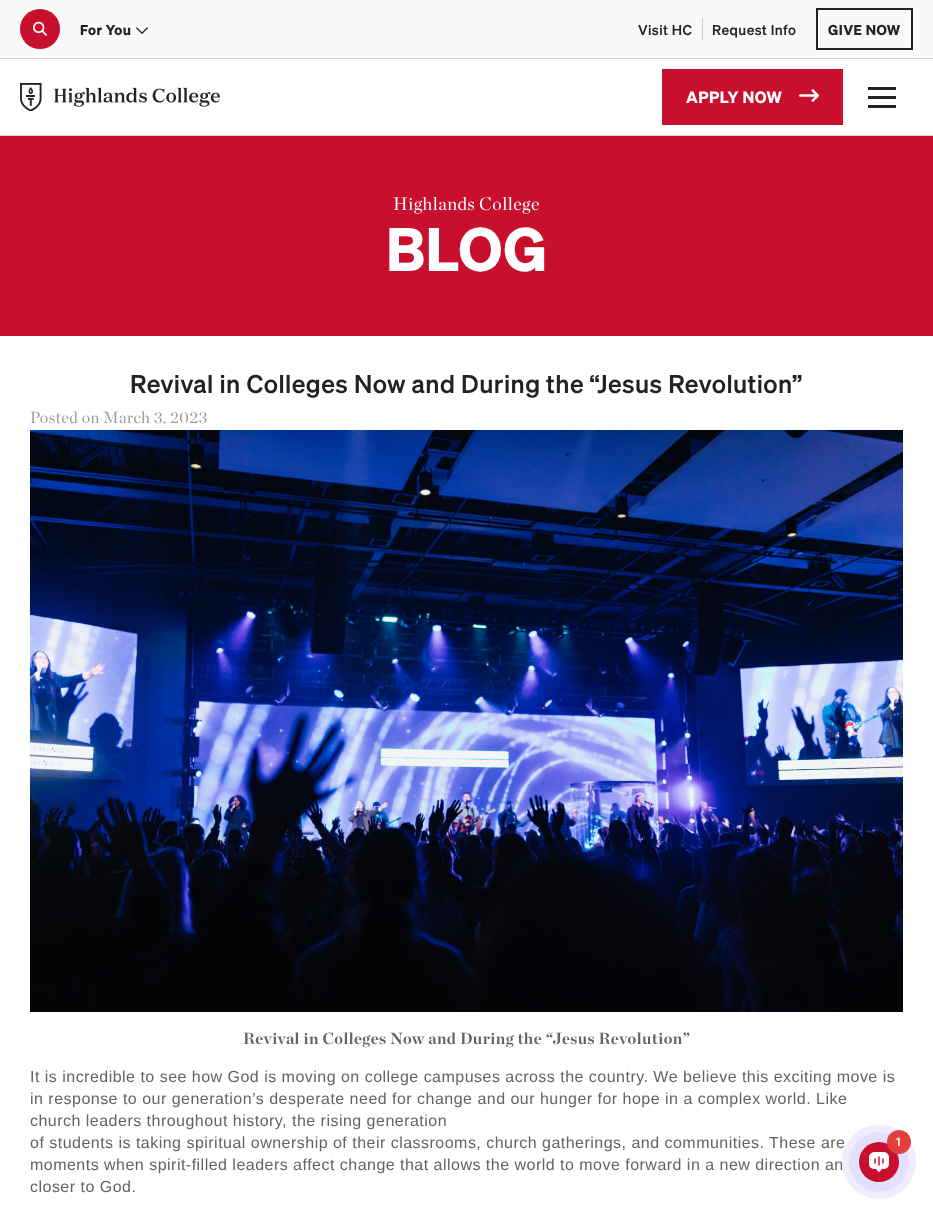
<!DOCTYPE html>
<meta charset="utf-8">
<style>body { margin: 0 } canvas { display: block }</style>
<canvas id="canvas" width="933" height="1216"></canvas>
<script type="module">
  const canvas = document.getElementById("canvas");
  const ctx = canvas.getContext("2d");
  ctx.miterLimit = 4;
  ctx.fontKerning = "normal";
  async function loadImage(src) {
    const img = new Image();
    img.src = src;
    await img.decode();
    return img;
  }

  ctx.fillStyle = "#ffffff";
  ctx.fillRect(0, 0, 933, 1216);
  ctx.fillStyle = "#f9f9f9";
  ctx.fillRect(0, 0, 933, 58);
  ctx.fillStyle = "#d7d1cb";
  ctx.fillRect(0, 58, 933, 1);
  ctx.fillStyle = "#c8102e";
  ctx.beginPath();
  ctx.arc(40, 29, 20, 0, Math.PI * 2);
  ctx.fill();
  ctx.drawImage(await loadImage("img1.png"), 33, 21, 14, 15);
  ctx.letterSpacing = "0.48px";
  ctx.font = "bold 14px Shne";
  ctx.fillStyle = "#222222";
  ctx.fillText("For You", 80, 35);
  ctx.drawImage(await loadImage("img2.png"), 136, 27, 12, 7);
  ctx.font = "500 14px Shne";
  ctx.fillText("Visit HC", 638, 35);
  ctx.fillStyle = "#c7cccf";
  ctx.fillRect(702, 18, 1, 22);
  ctx.fillStyle = "#222222";
  ctx.fillText("Request Info", 712, 35);
  ctx.strokeStyle = "#222222";
  ctx.lineWidth = 2;
  ctx.strokeRect(817, 9, 95, 40);
  ctx.font = "bold 14px Shne";
  ctx.fillText("GIVE NOW", 828, 35);
  ctx.fillStyle = "#d7d1cb";
  ctx.fillRect(0, 135, 933, 1);
  ctx.drawImage(await loadImage("img3.png"), 20, 83, 200, 28);
  ctx.fillStyle = "#c8102e";
  ctx.fillRect(662, 69, 181, 56);
  ctx.font = "bold 16px Shne";
  ctx.fillStyle = "#ffffff";
  ctx.fillText("APPLY NOW", 686, 103);
  ctx.drawImage(await loadImage("img4.png"), 799, 89, 20, 13);
  ctx.fillStyle = "#222222";
  ctx.fillRect(868, 87, 28, 3);
  ctx.fillRect(868, 96, 28, 3);
  ctx.fillRect(868, 105, 28, 3);
  ctx.fillStyle = "#c8102e";
  ctx.fillRect(0, 136, 933, 200);
  ctx.font = "18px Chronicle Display";
  ctx.fillStyle = "#ffffff";
  ctx.fillText("Highlands College", 393, 210);
  ctx.font = "bold 60px Shne";
  ctx.fillText("BLOG", 386, 271);
  ctx.font = "500 25.2px Shne";
  ctx.fillStyle = "#222222";
  ctx.fillText("Revival in Colleges Now and During the “Jesus Revolution”", 130, 393);
  ctx.font = "16px Chronicle Display";
  ctx.fillStyle = "#999999";
  ctx.fillText("Posted on March 3, 2023", 30, 423);
  ctx.drawImage(await loadImage("img5.png"), 30, 430, 873, 582);
  ctx.font = "bold 16px Chronicle Display";
  ctx.fillStyle = "#636363";
  ctx.fillText("Revival in Colleges Now and During the “Jesus Revolution”", 243, 1044);
  ctx.font = "16px Liberation Sans";
  ctx.fillText("It is incredible to see how God is moving on college campuses across the country. We believe this exciting move is", 30, 1082);
  ctx.fillText("in response to our generation’s desperate need for change and our hunger for hope in a complex world. Like", 30, 1104);
  ctx.fillText("church leaders throughout history, the rising generation", 30, 1126);
  ctx.fillText("of students is taking spiritual ownership of their classrooms, church gatherings, and communities. These are", 30, 1148);
  ctx.fillText("moments when spirit-filled leaders affect change that allows the world to move forward in a new direction an", 30, 1170);
  ctx.fillText("closer to God.", 30, 1192);
  ctx.beginPath();
  ctx.arc(879, 1162, 33.5, 0, Math.PI * 2);
  ctx.strokeStyle = "#eeecfe";
  ctx.lineWidth = 7;
  ctx.stroke();
  ctx.fillStyle = "#e2e0fb";
  ctx.beginPath();
  ctx.arc(879, 1162, 30, 0, Math.PI * 2);
  ctx.fill();
  ctx.fillStyle = "#c8102e";
  ctx.beginPath();
  ctx.arc(879, 1162, 20, 0, Math.PI * 2);
  ctx.fill();
  ctx.drawImage(await loadImage("img6.png"), 869, 1152, 20, 20);
  ctx.fillStyle = "#e53e3e";
  ctx.beginPath();
  ctx.arc(899, 1142, 12, 0, Math.PI * 2);
  ctx.fill();
  ctx.font = "600 12px Roboto";
  ctx.fillStyle = "#ffffff";
  ctx.fillText("1", 895, 1146);
</script>
